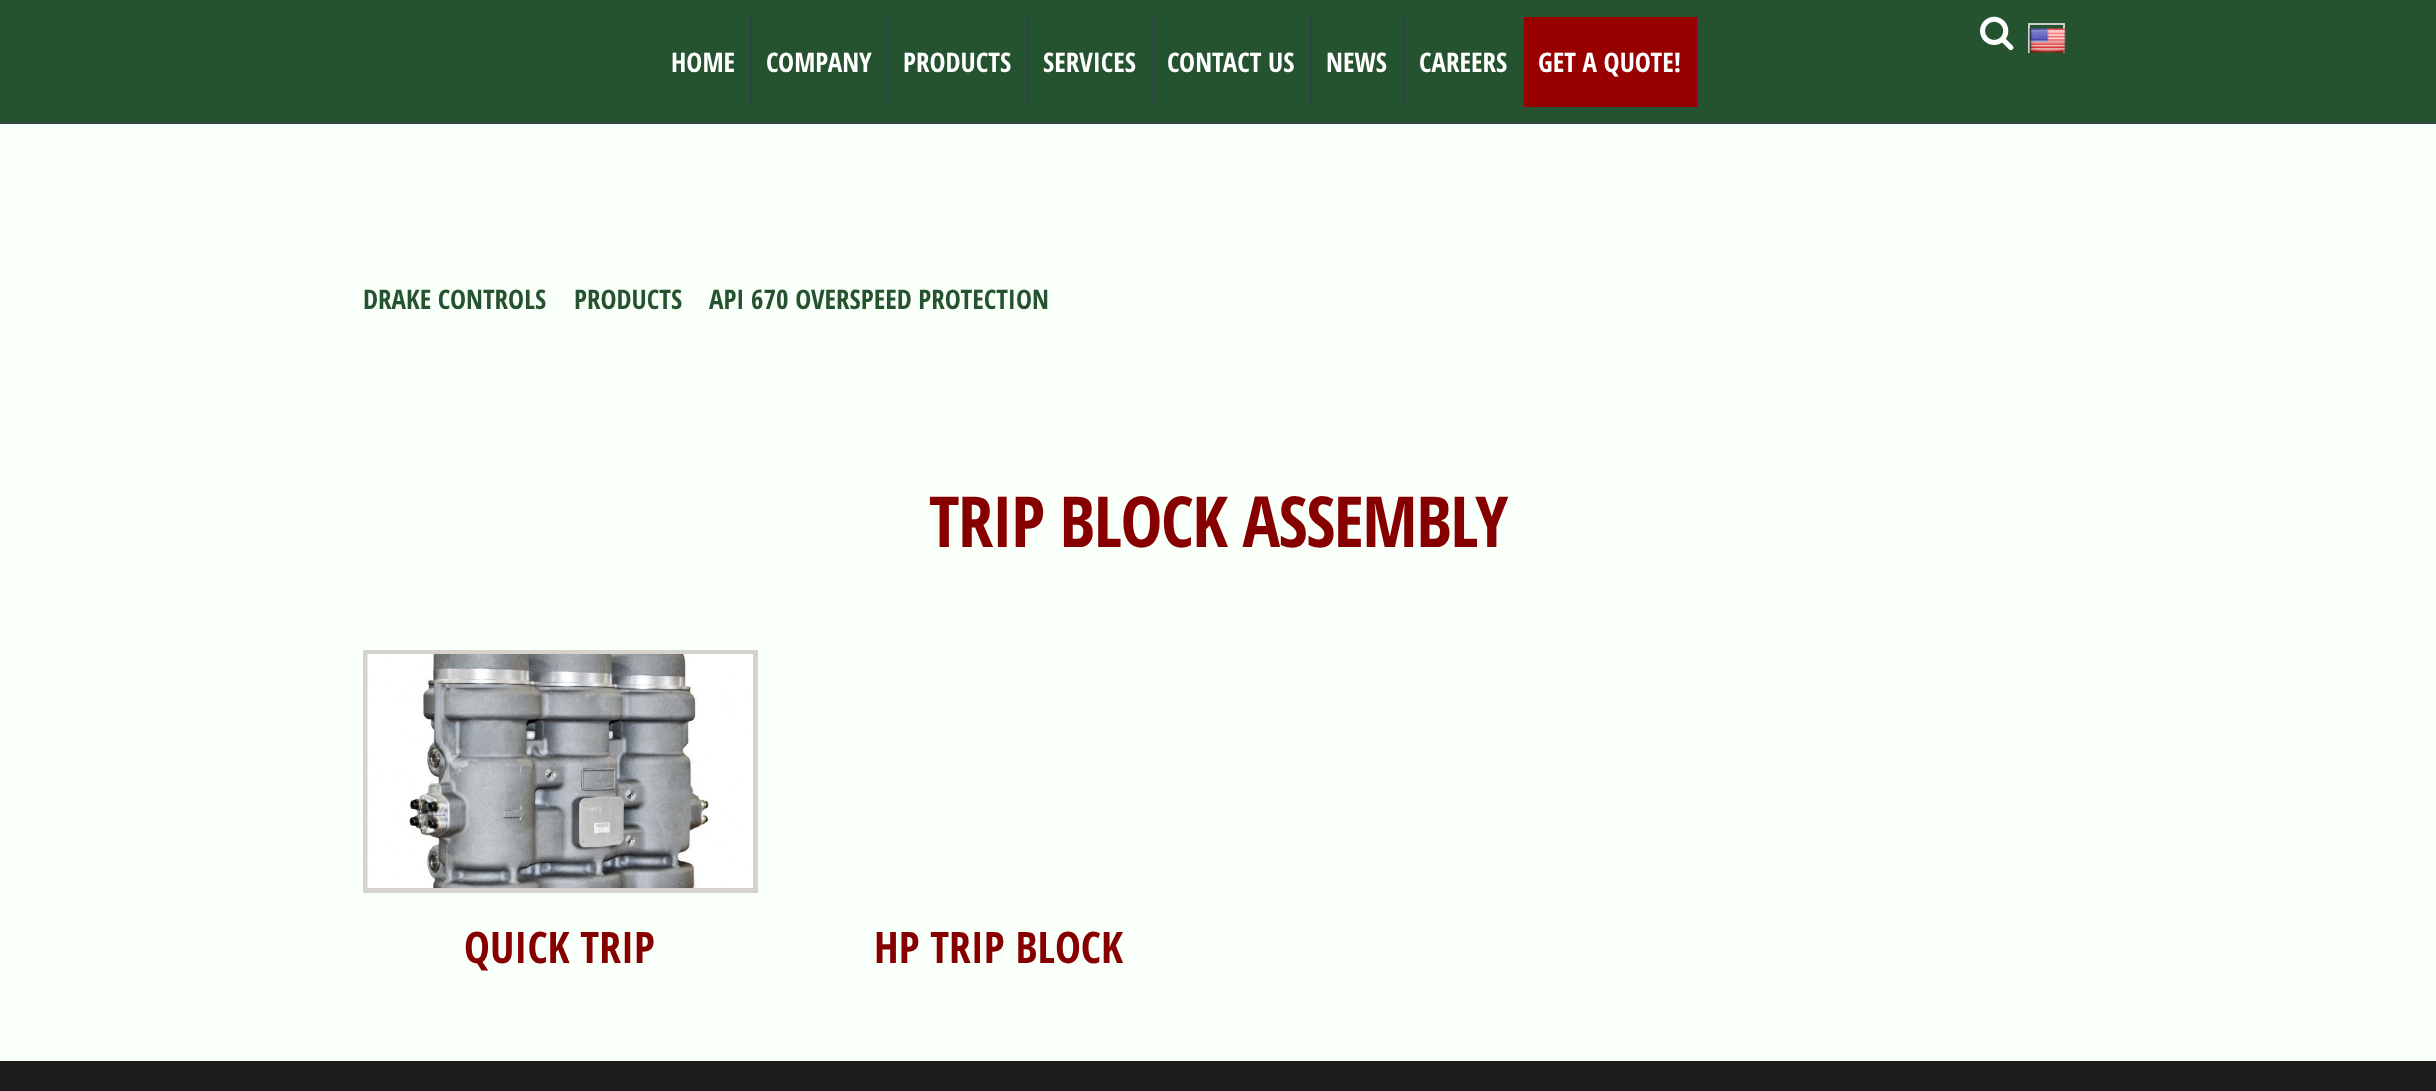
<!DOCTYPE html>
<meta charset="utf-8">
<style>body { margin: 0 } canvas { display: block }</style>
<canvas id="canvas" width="2436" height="1091"></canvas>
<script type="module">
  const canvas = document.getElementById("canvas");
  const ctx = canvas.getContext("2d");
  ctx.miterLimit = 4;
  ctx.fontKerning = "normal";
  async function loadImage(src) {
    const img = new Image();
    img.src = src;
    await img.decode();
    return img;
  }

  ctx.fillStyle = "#f9fff9";
  ctx.fillRect(0, 0, 2436, 1091);
  ctx.fillStyle = "#25532f";
  ctx.fillRect(0, 0, 2436, 122);
  ctx.fillStyle = "#2e4444";
  ctx.fillRect(0, 122, 2436, 2);
  ctx.drawImage(await loadImage("img1.png"), 1980, 16, 34, 35);
  ctx.fillStyle = "#cdcdcd";
  ctx.fillRect(2028, 23, 36, 2);
  ctx.fillRect(2063, 23, 2, 30);
  ctx.fillRect(2028, 23, 2, 30);
  ctx.drawImage(await loadImage("img2.png"), 2029, 28, 37, 25);
  ctx.fillStyle = "#2e4444";
  ctx.fillRect(750, 17, 2, 90);
  ctx.font = "bold 27px Open Sans Condensed";
  ctx.fillStyle = "#ffffff";
  ctx.fillText("HOME", 671, 72);
  ctx.fillStyle = "#2e4444";
  ctx.fillRect(887, 17, 2, 90);
  ctx.fillStyle = "#ffffff";
  ctx.fillText("COMPANY", 766, 72);
  ctx.fillStyle = "#2e4444";
  ctx.fillRect(1026, 17, 2, 90);
  ctx.fillStyle = "#ffffff";
  ctx.fillText("PRODUCTS", 903, 72);
  ctx.fillStyle = "#2e4444";
  ctx.fillRect(1151, 17, 2, 90);
  ctx.fillStyle = "#ffffff";
  ctx.fillText("SERVICES", 1043, 72);
  ctx.fillStyle = "#2e4444";
  ctx.fillRect(1310, 17, 2, 90);
  ctx.fillStyle = "#ffffff";
  ctx.fillText("CONTACT US", 1167, 72);
  ctx.fillStyle = "#2e4444";
  ctx.fillRect(1403, 17, 2, 90);
  ctx.fillStyle = "#ffffff";
  ctx.fillText("NEWS", 1326, 72);
  ctx.fillStyle = "#2e4444";
  ctx.fillRect(1523, 17, 1, 90);
  ctx.fillStyle = "#ffffff";
  ctx.fillText("CAREERS", 1419, 72);
  ctx.fillStyle = "#990000";
  ctx.fillRect(1524, 17, 173, 90);
  ctx.fillStyle = "#2e4444";
  ctx.fillRect(1697, 17, 2, 90);
  ctx.fillStyle = "#ffffff";
  ctx.fillText("GET A QUOTE!", 1538, 72);
  ctx.fillStyle = "#25532f";
  ctx.fillText("DRAKE CONTROLS", 363, 309);
  ctx.fillText("PRODUCTS", 574, 309);
  ctx.fillText("API 670 OVERSPEED PROTECTION", 709, 309);
  ctx.letterSpacing = "-1.5px";
  ctx.font = "bold 70.5px Open Sans Condensed";
  ctx.fillStyle = "#870000";
  ctx.fillText("TRIP BLOCK ASSEMBLY", 929, 547);
  ctx.strokeStyle = "#d5d3cc";
  ctx.lineWidth = 5;
  ctx.strokeRect(365.5, 652.5, 390, 238);
  ctx.drawImage(await loadImage("img3.png"), 367, 654, 386, 234);
  ctx.letterSpacing = "0px";
  ctx.font = "bold 43.5px Open Sans Condensed";
  ctx.fillText("QUICK TRIP", 464, 963);
  ctx.fillText("HP TRIP BLOCK", 874, 963);
  ctx.fillStyle = "#1d1c1a";
  ctx.fillRect(0, 1061, 2436, 30);
</script>
